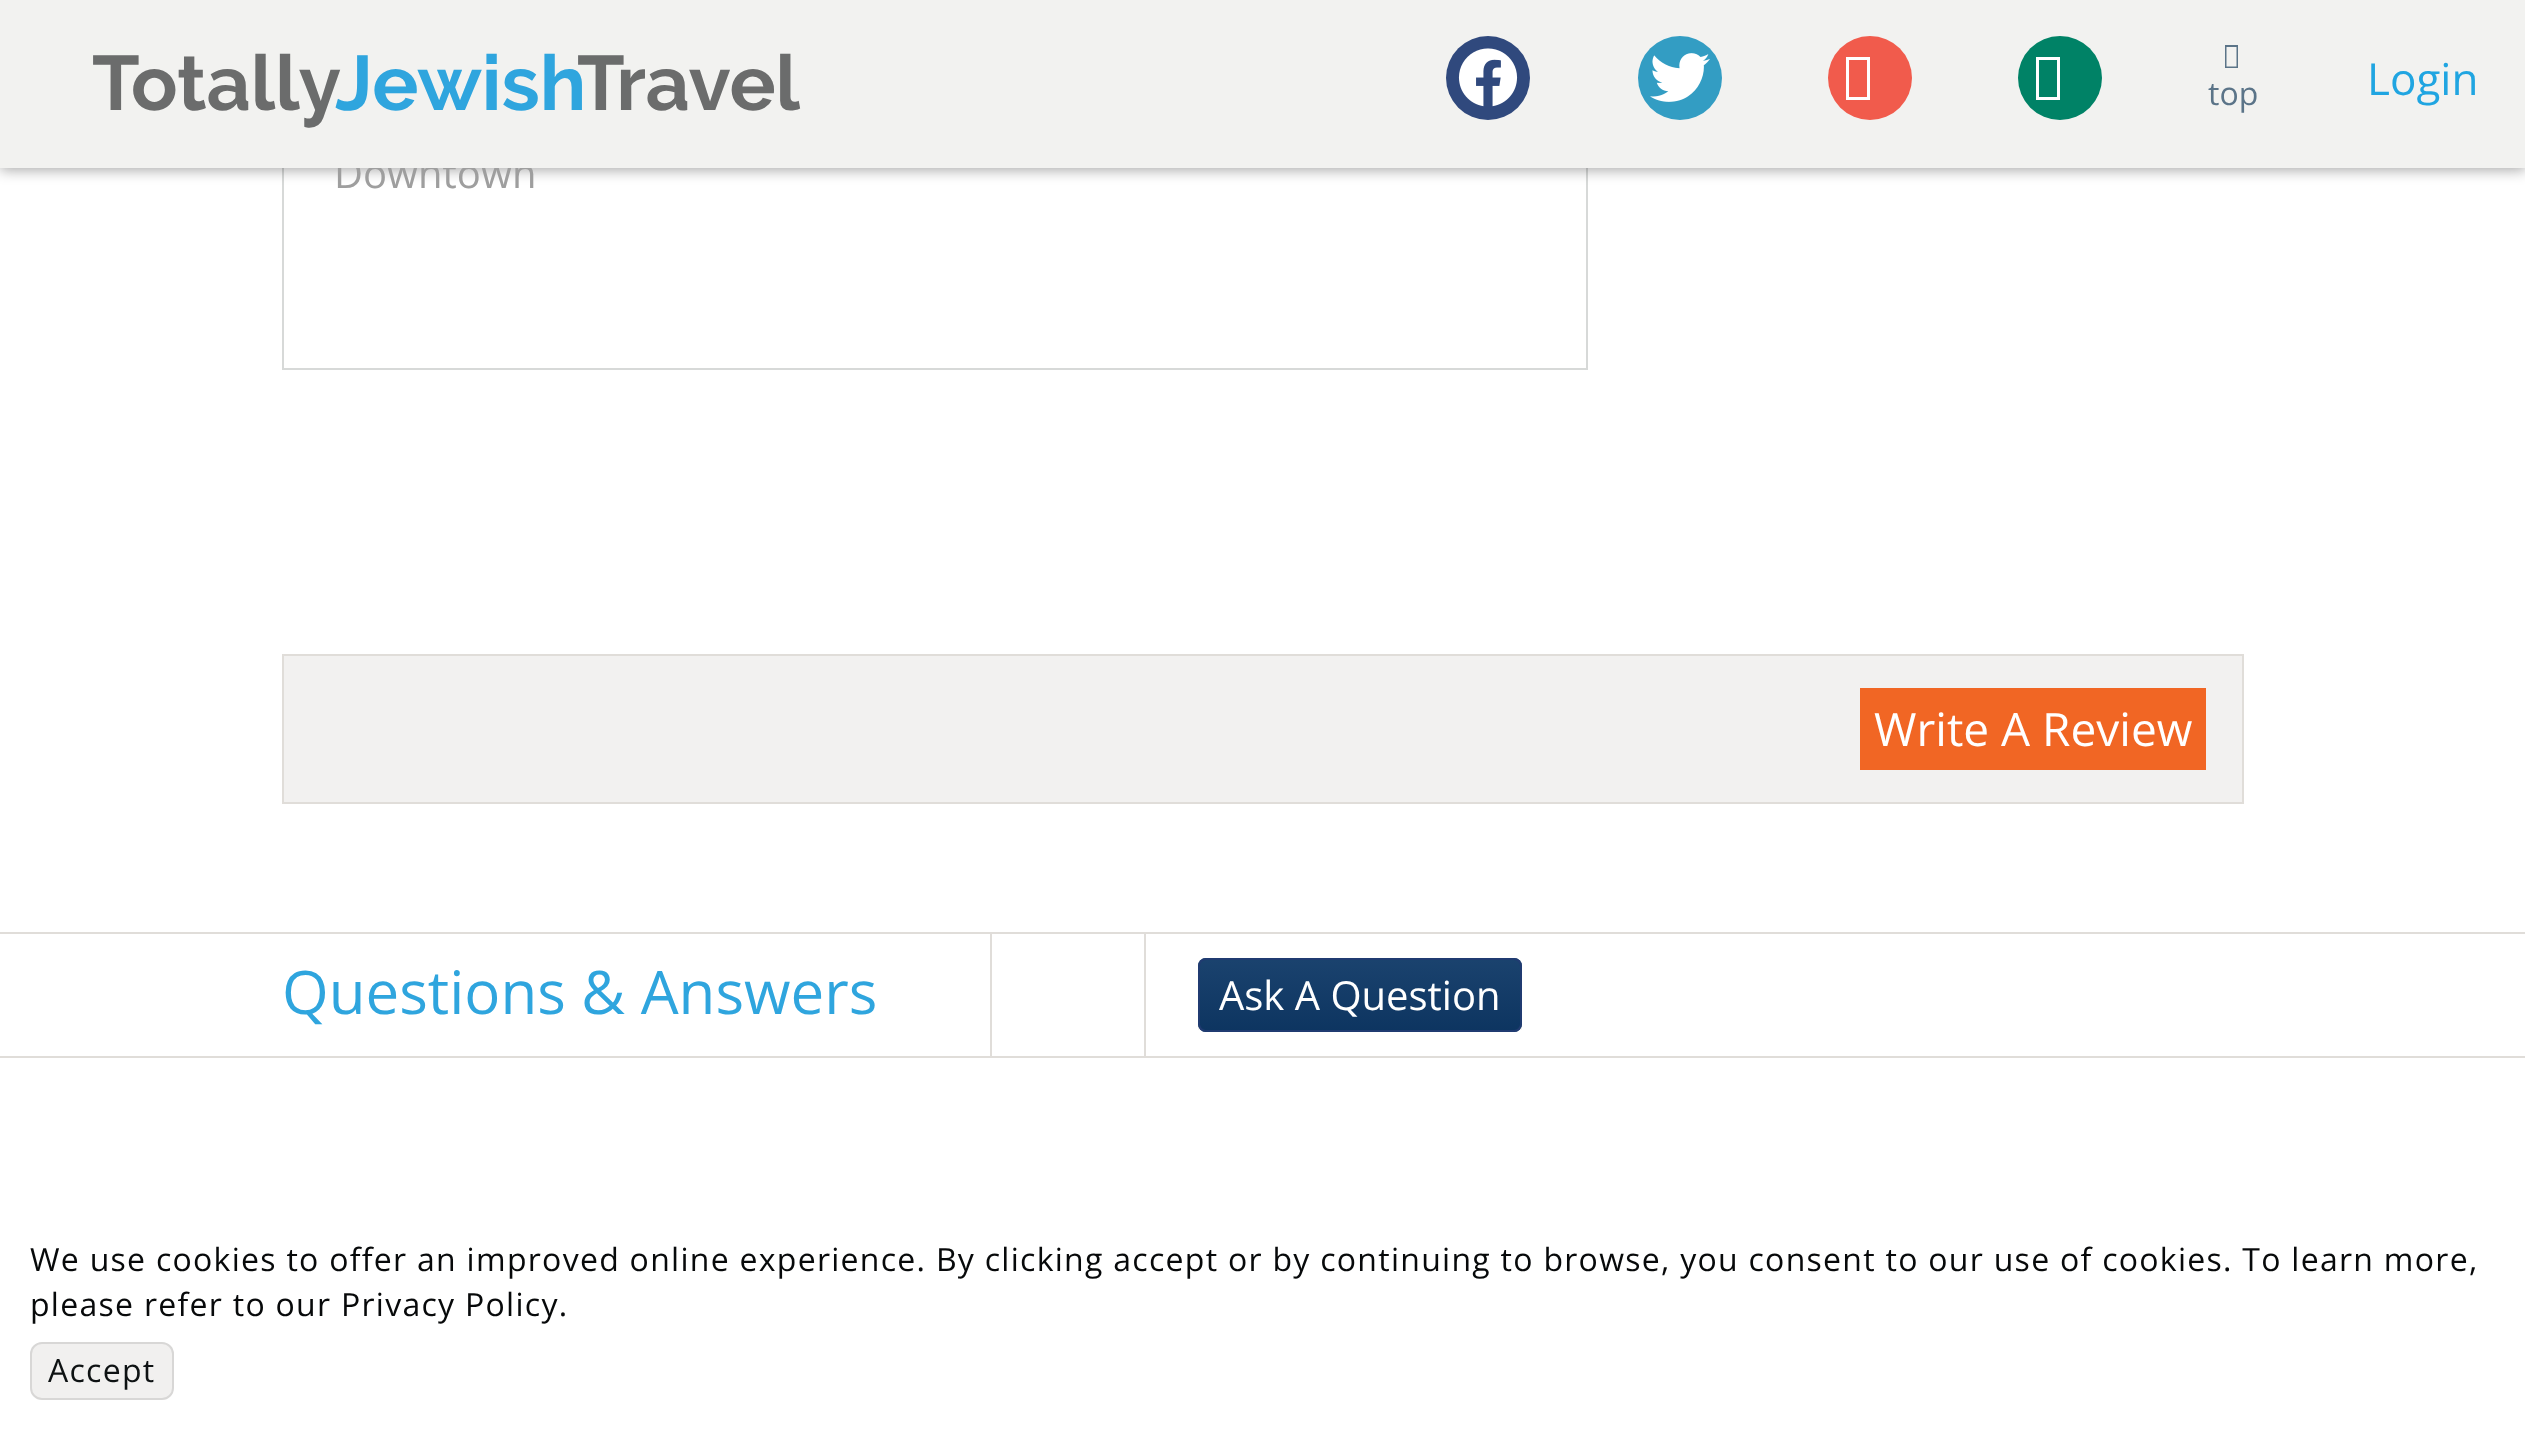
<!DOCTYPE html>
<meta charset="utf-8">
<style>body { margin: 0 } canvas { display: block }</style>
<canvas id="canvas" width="2525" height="1444"></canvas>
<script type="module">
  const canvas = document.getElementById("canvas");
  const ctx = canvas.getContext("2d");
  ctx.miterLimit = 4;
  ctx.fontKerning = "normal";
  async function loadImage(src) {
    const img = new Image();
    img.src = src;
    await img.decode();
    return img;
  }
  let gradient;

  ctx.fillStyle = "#ffffff";
  ctx.fillRect(0, 0, 2525, 1444);
  ctx.fillStyle = "#d7d9d8";
  ctx.fillRect(1586, 168, 2, 202);
  ctx.fillRect(282, 368, 1306, 2);
  ctx.fillRect(282, 168, 2, 202);
  ctx.fillStyle = "rgba(0, 0, 0, 0.35)";
  ctx.filter = "blur(7px)";
  ctx.beginPath();
  ctx.rect(0, 2, 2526, 168);
  ctx.fill();
  ctx.filter = "none";
  ctx.font = "40px Open Sans";
  ctx.fillStyle = "#9e9e9e";
  ctx.fillText("Downtown", 334, 188);
  ctx.fillStyle = "#f2f2f0";
  ctx.fillRect(0, 0, 2525, 168);
  ctx.font = "bold 77px Raleway";
  ctx.fillStyle = "#6b6c6c";
  ctx.fillText("Totally", 92, 110);
  ctx.fillStyle = "#2fa5de";
  ctx.fillText("Jewish", 335, 110);
  ctx.fillStyle = "#6b6c6c";
  ctx.fillText("Travel", 577, 110);
  ctx.fillStyle = "#30497d";
  ctx.beginPath();
  ctx.arc(1488, 78, 42, 0, Math.PI * 2);
  ctx.fill();
  ctx.drawImage(await loadImage("img1.png"), 1458, 48, 60, 59);
  ctx.fillStyle = "#339dc3";
  ctx.beginPath();
  ctx.arc(1680, 78, 42, 0, Math.PI * 2);
  ctx.fill();
  ctx.drawImage(await loadImage("img2.png"), 1650, 53, 60, 49);
  ctx.fillStyle = "#f15b4c";
  ctx.beginPath();
  ctx.arc(1870, 78, 42, 0, Math.PI * 2);
  ctx.fill();
  ctx.fillStyle = "#ffffff";
  ctx.beginPath();
  ctx.moveTo(1846, 100);
  ctx.lineTo(1846, 57);
  ctx.lineTo(1870, 57);
  ctx.lineTo(1870, 100);
  ctx.closePath();
  ctx.moveTo(1849, 97);
  ctx.lineTo(1867, 97);
  ctx.lineTo(1867, 60);
  ctx.lineTo(1849, 60);
  ctx.closePath();
  ctx.fill();
  ctx.fillStyle = "#008266";
  ctx.beginPath();
  ctx.arc(2060, 78, 42, 0, Math.PI * 2);
  ctx.fill();
  ctx.fillStyle = "#ffffff";
  ctx.beginPath();
  ctx.moveTo(2036, 100);
  ctx.lineTo(2036, 57);
  ctx.lineTo(2060, 57);
  ctx.lineTo(2060, 100);
  ctx.closePath();
  ctx.moveTo(2039, 97);
  ctx.lineTo(2057, 97);
  ctx.lineTo(2057, 60);
  ctx.lineTo(2039, 60);
  ctx.closePath();
  ctx.fill();
  ctx.fillStyle = "#5b7488";
  ctx.beginPath();
  ctx.moveTo(2225, 68);
  ctx.lineTo(2225, 45);
  ctx.lineTo(2238, 45);
  ctx.lineTo(2238, 68);
  ctx.closePath();
  ctx.moveTo(2226.5, 66.5);
  ctx.lineTo(2236.5, 66.5);
  ctx.lineTo(2236.5, 47);
  ctx.lineTo(2226.5, 47);
  ctx.closePath();
  ctx.fill();
  ctx.font = "32px Open Sans";
  ctx.fillText("top", 2208, 105);
  ctx.font = "44px Open Sans";
  ctx.fillStyle = "#20a5e1";
  ctx.fillText("Login", 2367, 95);
  ctx.fillStyle = "#f2f1f0";
  ctx.beginPath();
  ctx.rect(283, 655, 1960, 148);
  ctx.fill();
  ctx.strokeStyle = "#e0ddd9";
  ctx.lineWidth = 2;
  ctx.stroke();
  ctx.fillStyle = "#f16624";
  ctx.fillRect(1860, 688, 346, 82);
  ctx.font = "46px Open Sans";
  ctx.fillStyle = "#ffffff";
  ctx.fillText("Write A Review", 1874, 746);
  ctx.fillStyle = "#e0ddd9";
  ctx.fillRect(1144, 932, 2, 126);
  ctx.fillRect(990, 932, 2, 126);
  ctx.fillRect(0, 932, 2525, 2);
  ctx.font = "60px Open Sans";
  ctx.fillStyle = "#2fa5de";
  ctx.fillText("Questions & Answers", 282, 1014);
  ctx.fillStyle = "#0e3866";
  ctx.beginPath();
  ctx.roundRect(1198, 958, 324, 74, 8);
  ctx.fill();
  gradient = ctx.createLinearGradient(1360, 1030, 1360, 960);
  gradient.addColorStop(0, "rgba(0, 0, 0, 0.05)");
  gradient.addColorStop(1, "rgba(255, 255, 255, 0.05)");
  ctx.fillStyle = gradient;
  ctx.fillRect(1198, 960, 324, 70);
  ctx.beginPath();
  ctx.roundRect(1199, 959, 322, 72, 7);
  ctx.strokeStyle = "#203b71";
  ctx.stroke();
  ctx.font = "40px Open Sans";
  ctx.fillStyle = "#ffffff";
  ctx.fillText("Ask A Question", 1219, 1010);
  ctx.fillStyle = "#e0ddd9";
  ctx.fillRect(0, 1056, 2525, 2);
  ctx.letterSpacing = "1.28px";
  ctx.font = "32px Open Sans";
  ctx.fillStyle = "#07090a";
  ctx.fillText("We use cookies to offer an improved online experience. By clicking accept or by continuing to browse, you consent to our use of cookies. To learn more,", 30, 1271);
  ctx.fillText("please refer to our Privacy Policy.", 30, 1316);
  ctx.fillStyle = "#f1f0ef";
  ctx.beginPath();
  ctx.roundRect(30, 1342, 144, 58, 12);
  ctx.fill();
  ctx.beginPath();
  ctx.roundRect(31, 1343, 142, 56, 11);
  ctx.strokeStyle = "rgba(0, 0, 0, 0.1)";
  ctx.stroke();
  ctx.fillStyle = "#0e1213";
  ctx.fillText("Accept", 48, 1382);
</script>
